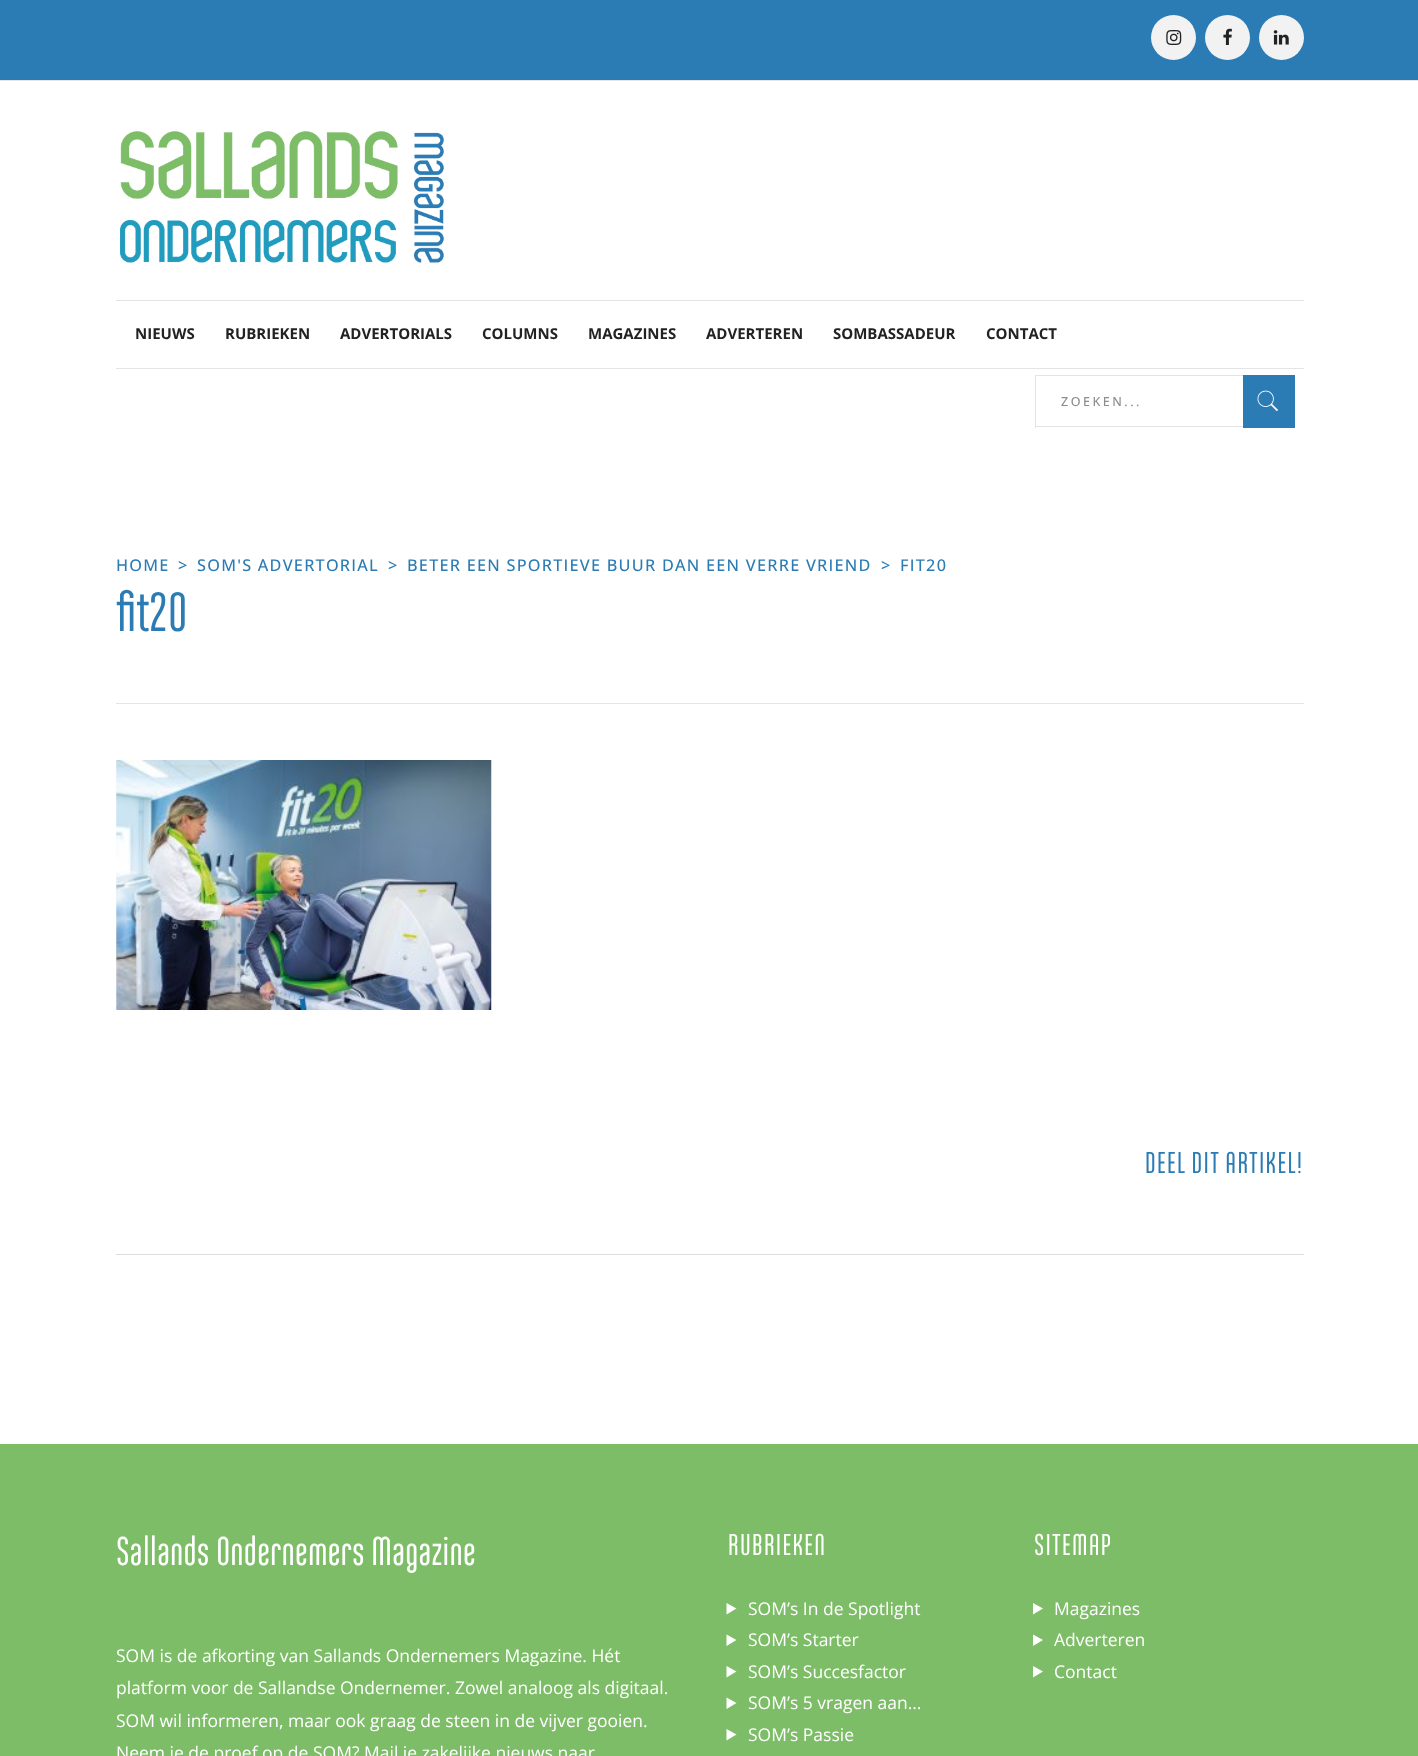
<!DOCTYPE html>
<meta charset="utf-8">
<style>body { margin: 0 } canvas { display: block }</style>
<canvas id="canvas" width="1418" height="1756"></canvas>
<script type="module">
  const canvas = document.getElementById("canvas");
  const ctx = canvas.getContext("2d");
  ctx.miterLimit = 4;
  ctx.fontKerning = "normal";
  async function loadImage(src) {
    const img = new Image();
    img.src = src;
    await img.decode();
    return img;
  }

  ctx.fillStyle = "#ffffff";
  ctx.fillRect(0, 0, 1418, 1756);
  ctx.fillStyle = "#2b7bb4";
  ctx.fillRect(0, 0, 1418, 80);
  ctx.fillStyle = "#e4e4e4";
  ctx.fillRect(0, 80, 1418, 1);
  ctx.fillStyle = "#f2f2f2";
  ctx.beginPath();
  ctx.arc(1173.5, 37.5, 22.5, 0, Math.PI * 2);
  ctx.fill();
  ctx.drawImage(await loadImage("img1.png"), 1166, 30, 16, 15);
  ctx.beginPath();
  ctx.arc(1227.5, 37.5, 22.5, 0, Math.PI * 2);
  ctx.fill();
  ctx.drawImage(await loadImage("img2.png"), 1223, 28, 9, 17);
  ctx.beginPath();
  ctx.arc(1281.5, 37.5, 22.5, 0, Math.PI * 2);
  ctx.fill();
  ctx.drawImage(await loadImage("img3.png"), 1273, 30, 16, 15);
  ctx.drawImage(await loadImage("img4.png"), 120, 131, 324, 132);
  ctx.fillStyle = "#e4e4e4";
  ctx.fillRect(116, 300, 1188, 1);
  ctx.fillRect(116, 368, 1188, 1);
  ctx.font = "bold 15px Open Sans";
  ctx.fillStyle = "#222222";
  ctx.fillText("NIEUWS", 135, 339);
  ctx.fillText("RUBRIEKEN", 225, 339);
  ctx.fillText("ADVERTORIALS", 340, 339);
  ctx.fillText("COLUMNS", 482, 339);
  ctx.fillText("MAGAZINES", 588, 339);
  ctx.fillText("ADVERTEREN", 706, 339);
  ctx.fillText("SOMBASSADEUR", 833, 339);
  ctx.fillText("CONTACT", 986, 339);
  ctx.fillStyle = "#e4e4e4";
  ctx.fillRect(1035, 375, 208, 1);
  ctx.fillRect(1035, 426, 208, 1);
  ctx.fillRect(1035, 375, 1, 53);
  ctx.letterSpacing = "2.5px";
  ctx.font = "500 12.5px Open Sans";
  ctx.fillStyle = "#8d8d8d";
  ctx.fillText("ZOEKEN...", 1061, 406);
  ctx.fillStyle = "#2b7bb4";
  ctx.fillRect(1243, 375, 52, 53);
  ctx.drawImage(await loadImage("img5.png"), 1257, 390, 21, 22);
  ctx.fillStyle = "#e4e4e4";
  ctx.fillRect(116, 703, 1188, 1);
  ctx.letterSpacing = "1.25px";
  ctx.font = "500 16.25px Open Sans";
  ctx.fillStyle = "#2b7bb4";
  ctx.fillText("HOME", 116, 571);
  ctx.fillText(">", 178, 571);
  ctx.fillText("SOM'S ADVERTORIAL", 197, 571);
  ctx.fillText(">", 388, 571);
  ctx.fillText("BETER EEN SPORTIEVE BUUR DAN EEN VERRE VRIEND", 407, 571);
  ctx.fillText(">", 881, 571);
  ctx.fillText("FIT20", 900, 571);
  ctx.letterSpacing = "0px";
  ctx.font = "600 55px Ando";
  ctx.fillText("fit20", 116, 631);
  ctx.fillStyle = "#dddddd";
  ctx.fillRect(116, 1254, 1188, 1);
  ctx.drawImage(await loadImage("img6.png"), 116, 760, 376, 250);
  ctx.letterSpacing = "1.25px";
  ctx.font = "600 30px Ando";
  ctx.fillStyle = "#2b7bb4";
  ctx.fillText("DEEL DIT ARTIKEL!", 1145, 1173);
  ctx.fillStyle = "#7dbd67";
  ctx.fillRect(0, 1444, 1418, 312);
  ctx.letterSpacing = "0px";
  ctx.font = "600 40px Ando";
  ctx.fillStyle = "#ffffff";
  ctx.fillText("Sallands Ondernemers Magazine", 116, 1565);
  ctx.font = "17.5px Open Sans";
  ctx.fillText("SOM is de afkorting van Sallands Ondernemers Magazine. Hét", 116, 1662);
  ctx.fillText("platform voor de Sallandse Ondernemer. Zowel analoog als digitaal.", 116, 1694);
  ctx.fillText("SOM wil informeren, maar ook graag de steen in de vijver gooien.", 116, 1727);
  ctx.fillText("Neem je de proef op de SOM? Mail je zakelijke nieuws naar", 116, 1759);
  ctx.letterSpacing = "1.25px";
  ctx.font = "600 30px Ando";
  ctx.fillText("RUBRIEKEN", 728, 1555);
  ctx.beginPath();
  ctx.moveTo(726.5, 1603);
  ctx.lineTo(736.5, 1608.5);
  ctx.lineTo(726.5, 1614.5);
  ctx.closePath();
  ctx.fill();
  ctx.letterSpacing = "0px";
  ctx.font = "17.5px Open Sans";
  ctx.fillText("SOM’s In de Spotlight", 748, 1615);
  ctx.beginPath();
  ctx.moveTo(726.5, 1634.5);
  ctx.lineTo(736.5, 1640);
  ctx.lineTo(726.5, 1646);
  ctx.closePath();
  ctx.fill();
  ctx.fillText("SOM’s Starter", 748, 1646);
  ctx.beginPath();
  ctx.moveTo(726.5, 1666);
  ctx.lineTo(736.5, 1671.5);
  ctx.lineTo(726.5, 1677.5);
  ctx.closePath();
  ctx.fill();
  ctx.fillText("SOM’s Succesfactor", 748, 1678);
  ctx.beginPath();
  ctx.moveTo(726.5, 1697.5);
  ctx.lineTo(736.5, 1703);
  ctx.lineTo(726.5, 1709);
  ctx.closePath();
  ctx.fill();
  ctx.fillText("SOM’s 5 vragen aan…", 748, 1709);
  ctx.beginPath();
  ctx.moveTo(726.5, 1729);
  ctx.lineTo(736.5, 1734.5);
  ctx.lineTo(726.5, 1740.5);
  ctx.closePath();
  ctx.fill();
  ctx.fillText("SOM’s Passie", 748, 1741);
  ctx.letterSpacing = "1.25px";
  ctx.font = "600 30px Ando";
  ctx.fillText("SITEMAP", 1034, 1555);
  ctx.beginPath();
  ctx.moveTo(1033, 1603);
  ctx.lineTo(1043, 1608.5);
  ctx.lineTo(1033, 1614.5);
  ctx.closePath();
  ctx.fill();
  ctx.letterSpacing = "0px";
  ctx.font = "17.5px Open Sans";
  ctx.fillText("Magazines", 1054, 1615);
  ctx.beginPath();
  ctx.moveTo(1033, 1634.5);
  ctx.lineTo(1043, 1640);
  ctx.lineTo(1033, 1646);
  ctx.closePath();
  ctx.fill();
  ctx.fillText("Adverteren", 1054, 1646);
  ctx.beginPath();
  ctx.moveTo(1033, 1666);
  ctx.lineTo(1043, 1671.5);
  ctx.lineTo(1033, 1677.5);
  ctx.closePath();
  ctx.fill();
  ctx.fillText("Contact", 1054, 1678);
</script>
